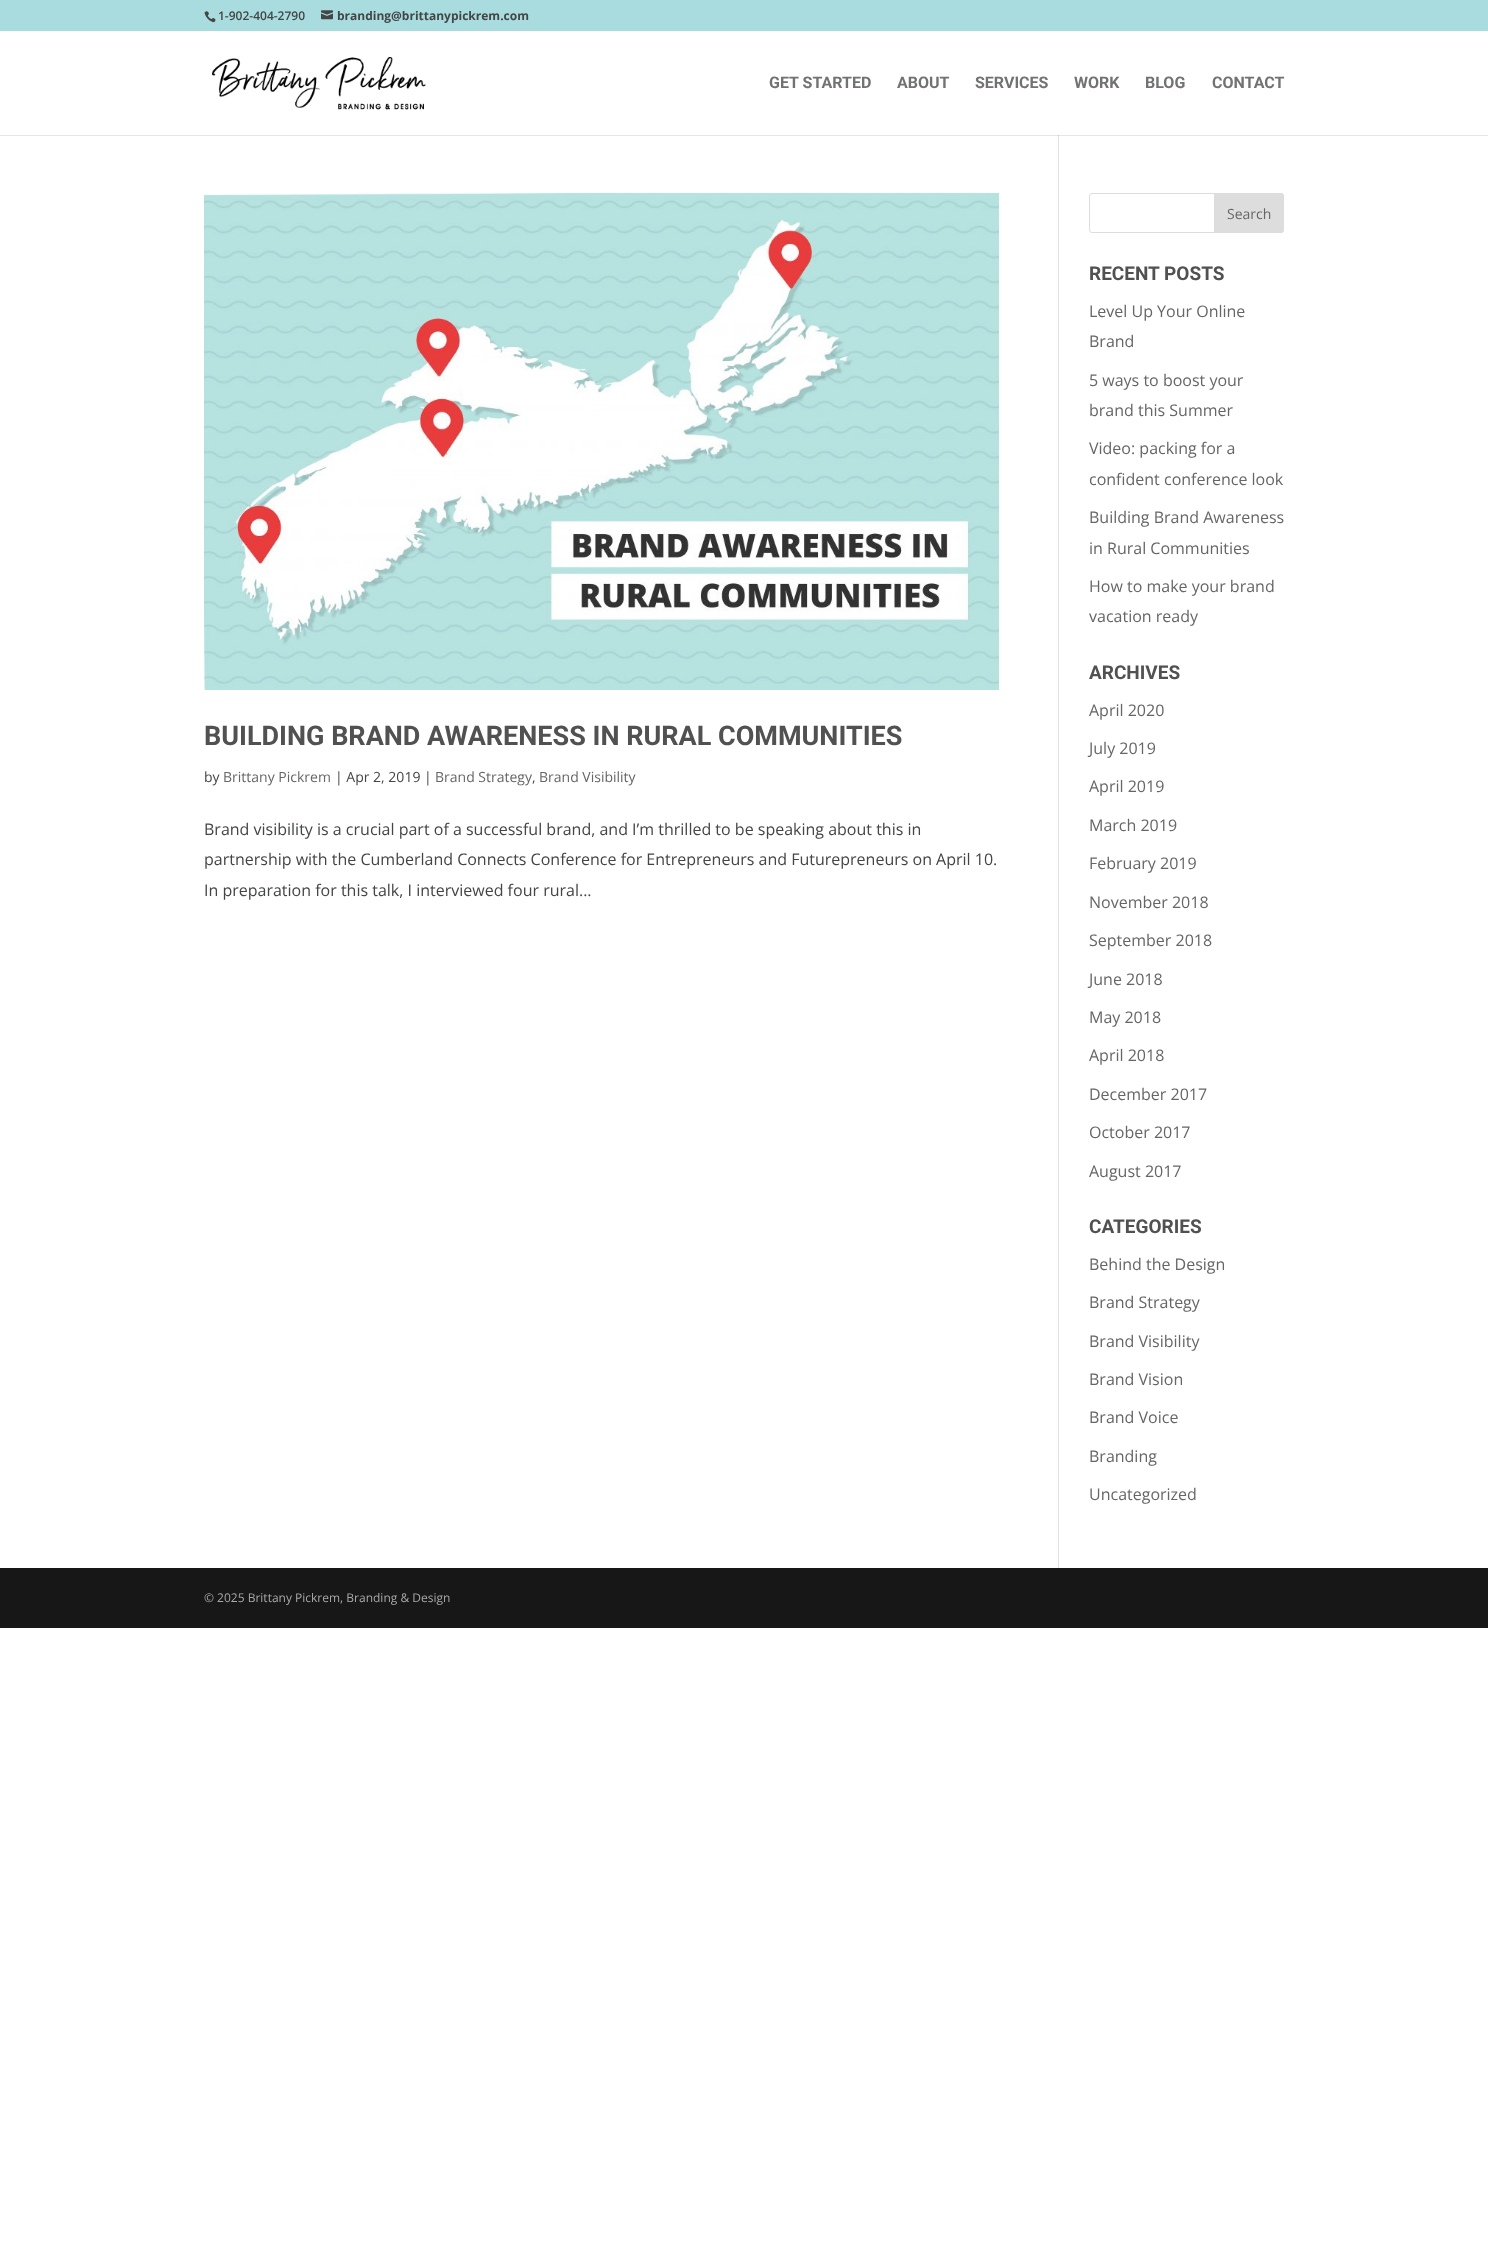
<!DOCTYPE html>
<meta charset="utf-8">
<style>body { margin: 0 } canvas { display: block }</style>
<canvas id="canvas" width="1488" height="2259"></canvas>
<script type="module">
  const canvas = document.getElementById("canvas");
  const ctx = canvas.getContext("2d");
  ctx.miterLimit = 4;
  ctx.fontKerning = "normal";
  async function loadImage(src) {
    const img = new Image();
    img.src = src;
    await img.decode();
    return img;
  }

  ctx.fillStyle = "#ffffff";
  ctx.fillRect(0, 0, 1488, 2259);
  ctx.fillStyle = "#e6e6e6";
  ctx.fillRect(0, 135, 1488, 1);
  ctx.fillStyle = "#a8dcdf";
  ctx.fillRect(0, 0, 1488, 31);
  ctx.drawImage(await loadImage("img1.png"), 204, 11, 12, 12);
  ctx.font = "600 12px Open Sans";
  ctx.fillStyle = "#444545";
  ctx.fillText("1-902-404-2790", 218, 20);
  ctx.drawImage(await loadImage("img2.png"), 321, 10, 12, 10);
  ctx.font = "bold 12px Open Sans";
  ctx.fillText("branding@brittanypickrem.com", 337, 20);
  ctx.drawImage(await loadImage("img3.png"), 212, 57, 214, 53);
  ctx.font = "bold 16px Roboto";
  ctx.fillStyle = "#717272";
  ctx.fillText("GET STARTED", 769, 88);
  ctx.fillText("ABOUT", 897, 88);
  ctx.fillText("SERVICES", 975, 88);
  ctx.fillText("WORK", 1074, 88);
  ctx.fillText("BLOG", 1145, 88);
  ctx.fillText("CONTACT", 1212, 88);
  ctx.fillStyle = "#e2e2e2";
  ctx.fillRect(1058, 135, 1, 1433);
  ctx.fillStyle = "#cbcbcb";
  ctx.fillRect(1058, 135, 1, 1);
  ctx.drawImage(await loadImage("img4.png"), 204, 193, 795, 497);
  ctx.font = "bold 27px Roboto";
  ctx.fillStyle = "#515151";
  ctx.fillText("BUILDING BRAND AWARENESS IN RURAL COMMUNITIES", 204, 745);
  ctx.font = "14px Open Sans";
  ctx.fillStyle = "#444545";
  ctx.fillText("by", 204, 782);
  ctx.fillStyle = "#666666";
  ctx.fillText("Brittany Pickrem", 223, 782);
  ctx.fillStyle = "#444545";
  ctx.fillText("| Apr 2, 2019 |", 335, 782);
  ctx.fillStyle = "#666666";
  ctx.fillText("Brand Strategy", 435, 782);
  ctx.fillStyle = "#444545";
  ctx.fillText(",", 532, 782);
  ctx.fillStyle = "#666666";
  ctx.fillText("Brand Visibility", 539, 782);
  ctx.font = "16px Open Sans";
  ctx.fillStyle = "#444545";
  ctx.fillText("Brand visibility is a crucial part of a successful brand, and I’m thrilled to be speaking about this in", 204, 835);
  ctx.fillText("partnership with the Cumberland Connects Conference for Entrepreneurs and Futurepreneurs on April 10.", 204, 865);
  ctx.fillText("In preparation for this talk, I interviewed four rural...", 204, 896);
  ctx.beginPath();
  ctx.roundRect(1089.5, 193.5, 194, 39, 2.5);
  ctx.strokeStyle = "#dddddd";
  ctx.stroke();
  ctx.fillStyle = "#dddddd";
  ctx.beginPath();
  ctx.roundRect(1214.5, 193.5, 69, 39, [0, 2.5, 2.5, 0]);
  ctx.fill();
  ctx.stroke();
  ctx.font = "14px Open Sans";
  ctx.fillStyle = "#666666";
  ctx.fillText("Search", 1227, 219);
  ctx.font = "bold 19px Roboto";
  ctx.fillStyle = "#515151";
  ctx.fillText("RECENT POSTS", 1089, 280);
  ctx.font = "16px Open Sans";
  ctx.fillStyle = "#666666";
  ctx.fillText("Level Up Your Online", 1089, 317);
  ctx.fillText("Brand", 1089, 347);
  ctx.fillText("5 ways to boost your", 1089, 386);
  ctx.fillText("brand this Summer", 1089, 416);
  ctx.fillText("Video: packing for a", 1089, 454);
  ctx.fillText("confident conference look", 1089, 485);
  ctx.fillText("Building Brand Awareness", 1089, 523);
  ctx.fillText("in Rural Communities", 1089, 554);
  ctx.fillText("How to make your brand", 1089, 592);
  ctx.fillText("vacation ready", 1089, 622);
  ctx.font = "bold 19px Roboto";
  ctx.fillStyle = "#515151";
  ctx.fillText("ARCHIVES", 1089, 679);
  ctx.font = "16px Open Sans";
  ctx.fillStyle = "#666666";
  ctx.fillText("April 2020", 1089, 716);
  ctx.fillText("July 2019", 1089, 754);
  ctx.fillText("April 2019", 1089, 792);
  ctx.fillText("March 2019", 1089, 831);
  ctx.fillText("February 2019", 1089, 869);
  ctx.fillText("November 2018", 1089, 908);
  ctx.fillText("September 2018", 1089, 946);
  ctx.fillText("June 2018", 1089, 985);
  ctx.fillText("May 2018", 1089, 1023);
  ctx.fillText("April 2018", 1089, 1061);
  ctx.fillText("December 2017", 1089, 1100);
  ctx.fillText("October 2017", 1089, 1138);
  ctx.fillText("August 2017", 1089, 1177);
  ctx.font = "bold 19px Roboto";
  ctx.fillStyle = "#515151";
  ctx.fillText("CATEGORIES", 1089, 1233);
  ctx.font = "16px Open Sans";
  ctx.fillStyle = "#666666";
  ctx.fillText("Behind the Design", 1089, 1270);
  ctx.fillText("Brand Strategy", 1089, 1308);
  ctx.fillText("Brand Visibility", 1089, 1347);
  ctx.fillText("Brand Vision", 1089, 1385);
  ctx.fillText("Brand Voice", 1089, 1423);
  ctx.fillText("Branding", 1089, 1462);
  ctx.fillText("Uncategorized", 1089, 1500);
  ctx.fillStyle = "#171717";
  ctx.fillRect(0, 1568, 1488, 60);
  ctx.font = "12px Open Sans";
  ctx.fillStyle = "#a8a8a8";
  ctx.fillText("© 2025 Brittany Pickrem, Branding & Design", 204, 1602);
</script>
